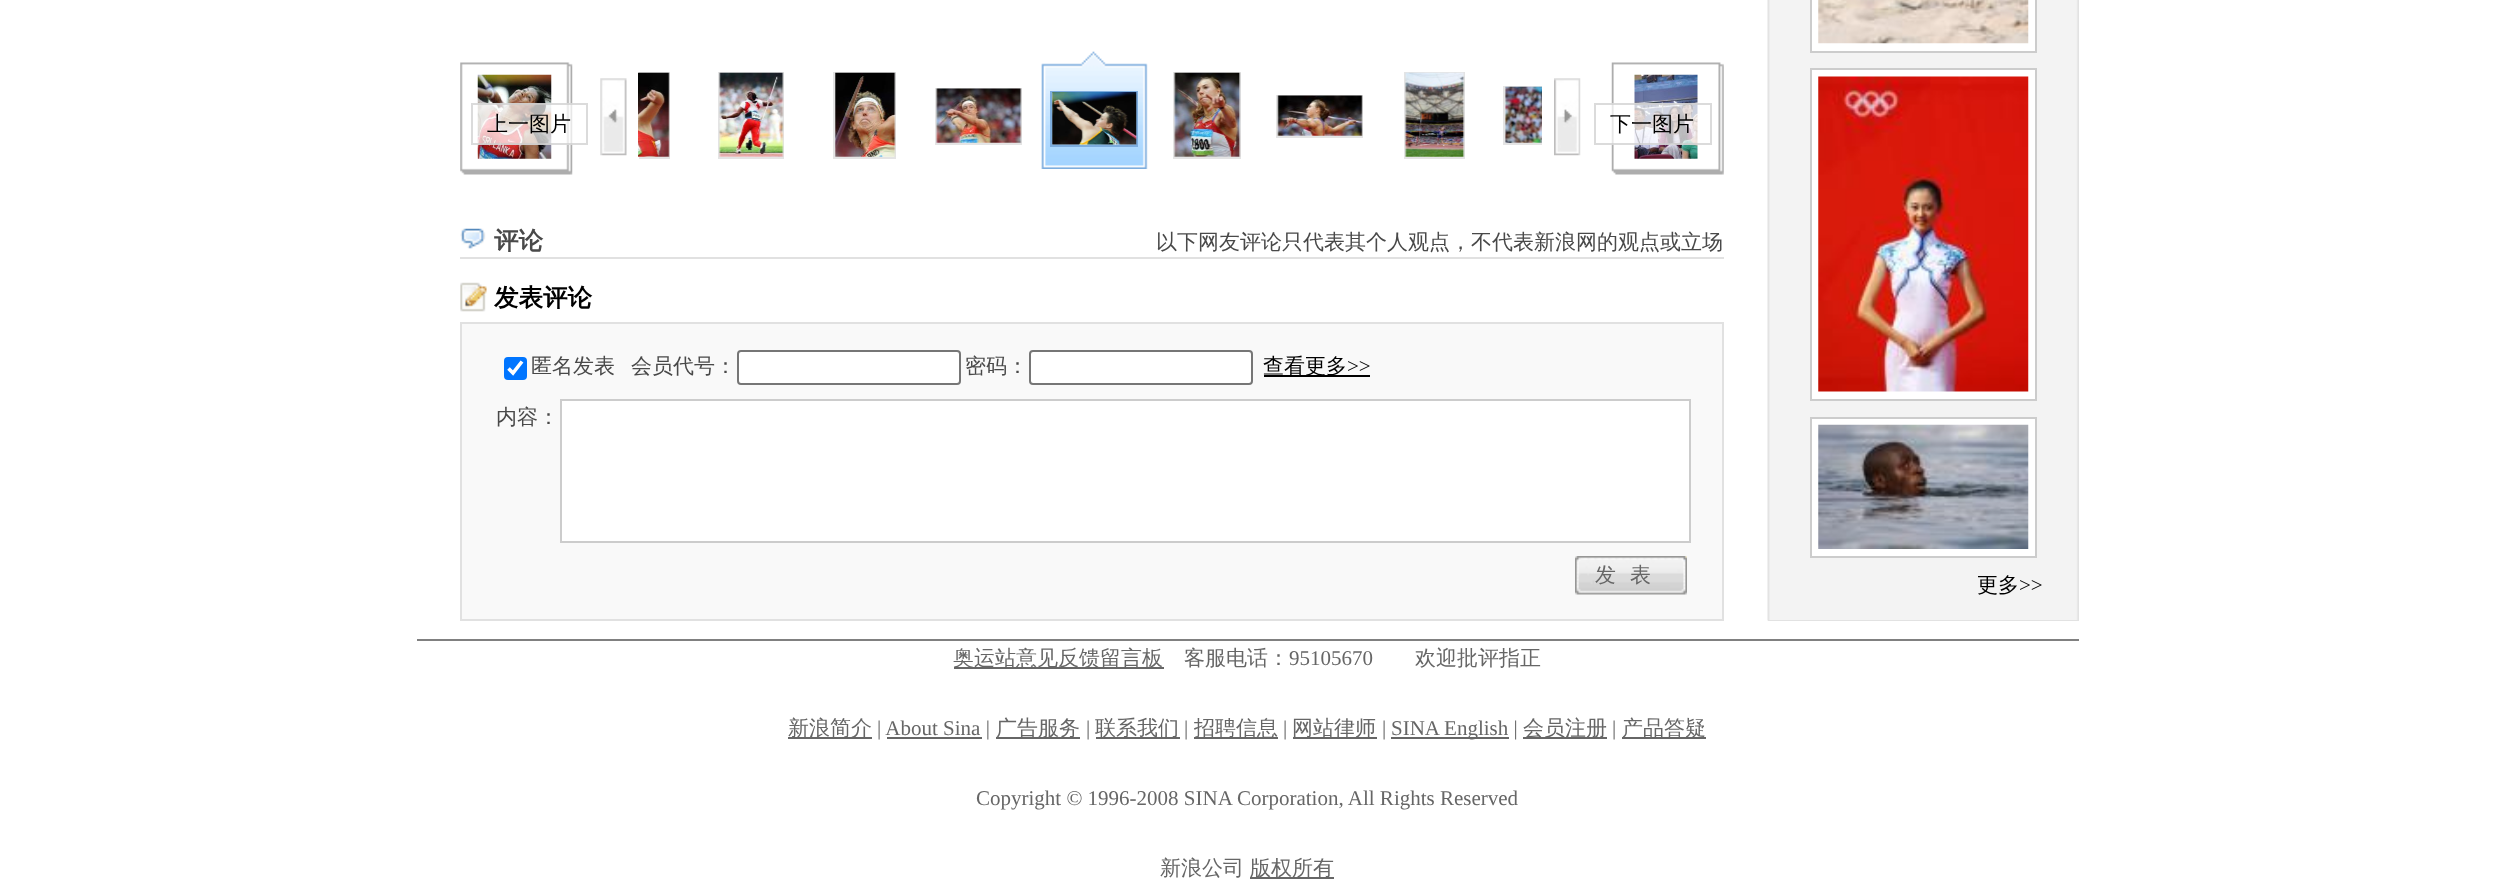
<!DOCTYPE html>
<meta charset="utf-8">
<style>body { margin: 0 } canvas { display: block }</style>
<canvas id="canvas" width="2493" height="894"></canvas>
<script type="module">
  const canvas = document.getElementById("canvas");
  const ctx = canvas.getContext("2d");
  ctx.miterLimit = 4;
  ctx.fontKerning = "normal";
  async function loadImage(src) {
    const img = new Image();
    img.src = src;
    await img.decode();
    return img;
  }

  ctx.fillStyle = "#ffffff";
  ctx.fillRect(0, 0, 2493, 894);
  ctx.drawImage(await loadImage("img1.png"), 460, 62, 113, 113);
  ctx.drawImage(await loadImage("img2.png"), 477, 74, 75, 85);
  ctx.fillStyle = "rgba(255, 255, 255, 0.7)";
  ctx.fillRect(477, 103, 96, 42);
  ctx.strokeStyle = "rgba(204, 204, 204, 0.7)";
  ctx.lineWidth = 2;
  ctx.strokeRect(472, 104, 115, 40);
  ctx.font = "500 21px WenQuanYi Zen Hei";
  ctx.fillStyle = "#000000";
  ctx.fillText("上一图片", 487, 131);
  ctx.drawImage(await loadImage("img13.png"), 600, 78, 27, 78);
  ctx.save();
  ctx.beginPath();
  ctx.rect(639, 44, 903, 126);
  ctx.clip();
  ctx.strokeStyle = "#e4e4e4";
  ctx.strokeRect(605, 73, 64, 85);
  ctx.restore();
  ctx.drawImage(await loadImage("img3.png"), 638, 72, 32, 85);
  ctx.strokeStyle = "#e4e4e4";
  ctx.strokeRect(719, 73, 64, 85);
  ctx.drawImage(await loadImage("img4.png"), 719, 72, 65, 85);
  ctx.strokeRect(834, 73, 61, 85);
  ctx.drawImage(await loadImage("img5.png"), 835, 72, 61, 85);
  ctx.strokeRect(936, 89, 85, 55);
  ctx.drawImage(await loadImage("img6.png"), 936, 88, 86, 55);
  ctx.drawImage(await loadImage("img7.png"), 1041, 51, 107, 118);
  ctx.strokeStyle = "#7dadde";
  ctx.strokeRect(1051, 92, 86, 54);
  ctx.drawImage(await loadImage("img8.png"), 1052, 92, 85, 53);
  ctx.strokeStyle = "#e4e4e4";
  ctx.strokeRect(1174, 73, 66, 85);
  ctx.drawImage(await loadImage("img9.png"), 1174, 72, 67, 85);
  ctx.strokeRect(1277, 96, 85, 41);
  ctx.drawImage(await loadImage("img10.png"), 1277, 95, 86, 41);
  ctx.strokeRect(1405, 73, 59, 85);
  ctx.drawImage(await loadImage("img11.png"), 1405, 72, 60, 85);
  ctx.save();
  ctx.beginPath();
  ctx.rect(639, 44, 903, 126);
  ctx.clip();
  ctx.strokeRect(1504, 87, 86, 57);
  ctx.restore();
  ctx.drawImage(await loadImage("img12.png"), 1505, 86, 37, 57);
  ctx.drawImage(await loadImage("img14.png"), 1554, 78, 27, 78);
  ctx.drawImage(await loadImage("img15.png"), 1611, 62, 113, 113);
  ctx.drawImage(await loadImage("img16.png"), 1634, 74, 64, 85);
  ctx.fillStyle = "rgba(255, 255, 255, 0.7)";
  ctx.fillRect(1611, 103, 87, 42);
  ctx.strokeStyle = "rgba(204, 204, 204, 0.7)";
  ctx.strokeRect(1595, 104, 116, 40);
  ctx.fillStyle = "#000000";
  ctx.fillText("下一图片", 1610, 131);
  ctx.fillStyle = "#e1e1e1";
  ctx.fillRect(460, 257, 1264, 2);
  ctx.drawImage(await loadImage("img17.png"), 460, 228, 26, 21);
  ctx.font = "bold 24.5px WenQuanYi Zen Hei";
  ctx.fillStyle = "#494949";
  ctx.fillText("评论", 494, 249);
  ctx.font = "500 21px WenQuanYi Zen Hei";
  ctx.fillText("以下网友评论只代表其个人观点，不代表新浪网的观点或立场", 1156, 249);
  ctx.drawImage(await loadImage("img18.png"), 460, 282, 27, 30);
  ctx.font = "bold 24.5px WenQuanYi Zen Hei";
  ctx.fillStyle = "#000000";
  ctx.fillText("发表评论", 494, 306);
  ctx.fillStyle = "#f9f9f9";
  ctx.beginPath();
  ctx.rect(461, 323, 1262, 297);
  ctx.fill();
  ctx.strokeStyle = "#e1e1e1";
  ctx.stroke();
  ctx.fillStyle = "#0075ff";
  ctx.beginPath();
  ctx.roundRect(504, 357, 23, 23, 4);
  ctx.fill();
  ctx.beginPath();
  ctx.moveTo(508.5, 368.5);
  ctx.lineTo(513, 373);
  ctx.lineTo(522, 361.5);
  ctx.strokeStyle = "#ffffff";
  ctx.lineWidth = 3.6;
  ctx.stroke();
  ctx.font = "500 21px WenQuanYi Zen Hei";
  ctx.fillStyle = "#494949";
  ctx.fillText("匿名发表", 531, 373);
  ctx.fillText("会员代号：", 631, 373);
  ctx.fillStyle = "#ffffff";
  ctx.beginPath();
  ctx.roundRect(738, 351, 222, 33, 3);
  ctx.fill();
  ctx.strokeStyle = "#767676";
  ctx.lineWidth = 2;
  ctx.stroke();
  ctx.fillStyle = "#494949";
  ctx.fillText("密码：", 965, 373);
  ctx.fillStyle = "#ffffff";
  ctx.beginPath();
  ctx.roundRect(1030, 351, 222, 33, 3);
  ctx.fill();
  ctx.stroke();
  ctx.fillStyle = "#000000";
  ctx.fillRect(1264, 375, 106, 2);
  ctx.fillText("查看更多", 1263, 373);
  ctx.font = "21px Liberation Serif";
  ctx.fillText(">>", 1347, 373);
  ctx.font = "500 21px WenQuanYi Zen Hei";
  ctx.fillStyle = "#494949";
  ctx.fillText("内容：", 496, 424);
  ctx.fillStyle = "#ffffff";
  ctx.beginPath();
  ctx.rect(561, 400, 1129, 142);
  ctx.fill();
  ctx.strokeStyle = "#cccccc";
  ctx.stroke();
  ctx.drawImage(await loadImage("img19.png"), 1575, 556, 112, 39);
  ctx.letterSpacing = "14px";
  ctx.fillStyle = "#666666";
  ctx.fillText("发表", 1595, 582);
  ctx.drawImage(await loadImage("img20.png"), 1767, 0, 312, 621);
  ctx.fillStyle = "#e2e2e2";
  ctx.fillRect(1768, 620, 311, 1);
  ctx.fillStyle = "#ffffff";
  ctx.beginPath();
  ctx.rect(1811, -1, 225, 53);
  ctx.fill();
  ctx.stroke();
  ctx.drawImage(await loadImage("img21.png"), 1818, 0, 211, 44);
  ctx.beginPath();
  ctx.rect(1811, 69, 225, 331);
  ctx.fill();
  ctx.stroke();
  ctx.drawImage(await loadImage("img22.png"), 1818, 76, 211, 316);
  ctx.beginPath();
  ctx.rect(1811, 418, 225, 139);
  ctx.fill();
  ctx.stroke();
  ctx.drawImage(await loadImage("img23.png"), 1818, 424, 211, 125);
  ctx.letterSpacing = "0px";
  ctx.fillStyle = "#000000";
  ctx.fillText("更多", 1977, 592);
  ctx.font = "21px Liberation Serif";
  ctx.fillText(">>", 2019, 592);
  ctx.fillStyle = "#808080";
  ctx.fillRect(417, 639, 1662, 2);
  ctx.fillStyle = "#666666";
  ctx.fillRect(954, 667, 210, 2);
  ctx.font = "500 21px WenQuanYi Zen Hei";
  ctx.fillText("奥运站意见反馈留言板", 953, 665);
  ctx.fillText("客服电话：", 1184, 665);
  ctx.font = "21px Liberation Serif";
  ctx.fillText("95105670", 1289, 665);
  ctx.font = "500 21px WenQuanYi Zen Hei";
  ctx.fillText("欢迎批评指正", 1415, 665);
  ctx.fillRect(788, 737, 84, 2);
  ctx.fillText("新浪简介", 788, 735);
  ctx.font = "21px Liberation Serif";
  ctx.fillText("| About Sina |", 877, 735);
  ctx.fillRect(996, 737, 84, 2);
  ctx.font = "500 21px WenQuanYi Zen Hei";
  ctx.fillText("广告服务", 996, 735);
  ctx.font = "21px Liberation Serif";
  ctx.fillText("|", 1086, 735);
  ctx.fillRect(1096, 737, 84, 2);
  ctx.font = "500 21px WenQuanYi Zen Hei";
  ctx.fillText("联系我们", 1095, 735);
  ctx.font = "21px Liberation Serif";
  ctx.fillText("|", 1184, 735);
  ctx.fillRect(1194, 737, 84, 2);
  ctx.font = "500 21px WenQuanYi Zen Hei";
  ctx.fillText("招聘信息", 1194, 735);
  ctx.font = "21px Liberation Serif";
  ctx.fillText("|", 1283, 735);
  ctx.fillRect(1293, 737, 84, 2);
  ctx.font = "500 21px WenQuanYi Zen Hei";
  ctx.fillText("网站律师", 1292, 735);
  ctx.font = "21px Liberation Serif";
  ctx.fillText("|", 1382, 735);
  ctx.fillRect(1391, 737, 118, 2);
  ctx.fillText("SINA English |", 1391, 735);
  ctx.fillRect(1523, 737, 84, 2);
  ctx.font = "500 21px WenQuanYi Zen Hei";
  ctx.fillText("会员注册", 1523, 735);
  ctx.font = "21px Liberation Serif";
  ctx.fillText("|", 1612, 735);
  ctx.fillRect(1622, 737, 84, 2);
  ctx.font = "500 21px WenQuanYi Zen Hei";
  ctx.fillText("产品答疑", 1622, 735);
  ctx.fillRect(887, 737, 95, 2);
  ctx.font = "21px Liberation Serif";
  ctx.fillText("Copyright © 1996-2008 SINA Corporation, All Rights Reserved", 976, 805);
  ctx.font = "500 21px WenQuanYi Zen Hei";
  ctx.fillText("新浪公司", 1160, 875);
  ctx.fillRect(1250, 877, 84, 2);
  ctx.fillText("版权所有", 1250, 875);
</script>
